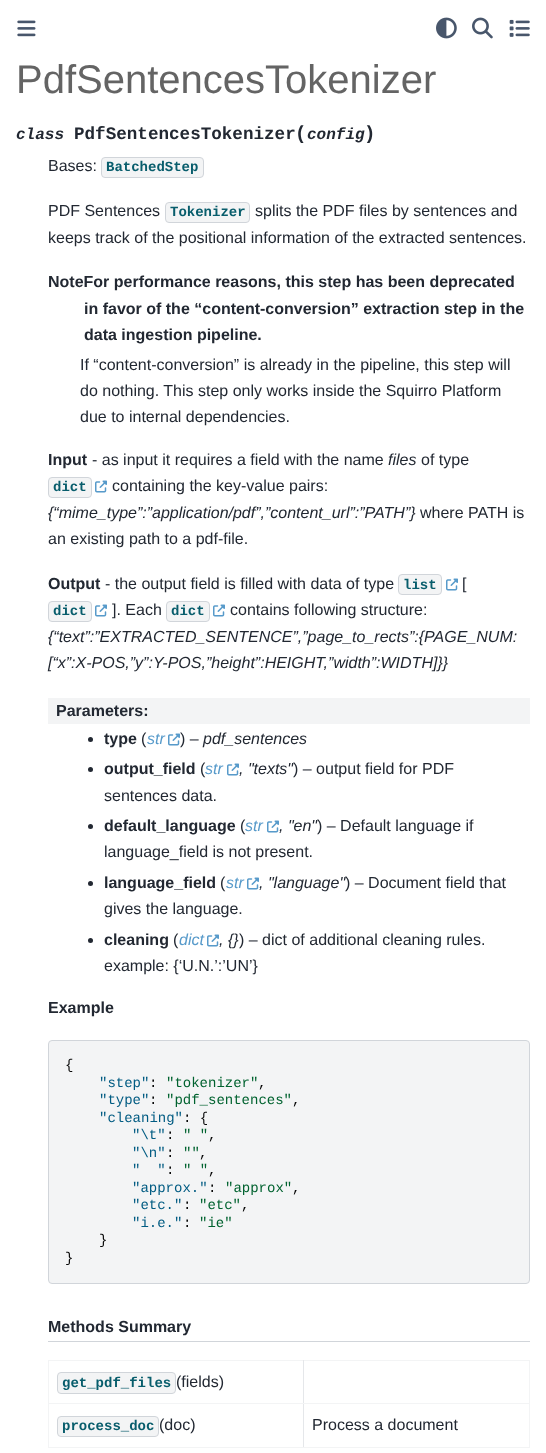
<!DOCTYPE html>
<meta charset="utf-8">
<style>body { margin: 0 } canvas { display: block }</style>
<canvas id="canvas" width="546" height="1453"></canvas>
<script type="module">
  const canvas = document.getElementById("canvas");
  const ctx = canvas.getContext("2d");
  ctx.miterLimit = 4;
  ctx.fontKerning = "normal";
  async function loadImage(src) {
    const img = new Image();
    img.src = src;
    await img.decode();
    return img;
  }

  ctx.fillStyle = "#ffffff";
  ctx.fillRect(0, 0, 546, 1453);
  ctx.drawImage(await loadImage("img1.png"), 17, 20, 19, 17);
  ctx.drawImage(await loadImage("img2.png"), 436, 17, 21, 22);
  ctx.drawImage(await loadImage("img3.png"), 472, 17, 21, 22);
  ctx.drawImage(await loadImage("img4.png"), 509, 19, 21, 18);
  ctx.font = "40px Liberation Sans";
  ctx.fillStyle = "#646464";
  ctx.fillText("PdfSentencesTokenizer", 16, 93);
  ctx.font = "italic bold 16px Liberation Mono";
  ctx.fillStyle = "#222832";
  ctx.fillText("class", 16, 139);
  ctx.font = "bold 17.6px Liberation Mono";
  ctx.fillText("PdfSentencesTokenizer", 74, 139);
  ctx.font = "bold 19px Liberation Mono";
  ctx.fillText("(", 295, 139);
  ctx.font = "italic bold 16px Liberation Mono";
  ctx.fillText("config", 307, 139);
  ctx.font = "bold 19px Liberation Mono";
  ctx.fillText(")", 364, 139);
  ctx.font = "16px Liberation Sans";
  ctx.fillText("Bases:", 48, 171);
  ctx.fillStyle = "#f3f4f5";
  ctx.beginPath();
  ctx.roundRect(101.5, 157.5, 102, 20, 3.5);
  ctx.fill();
  ctx.strokeStyle = "#d1d5da";
  ctx.stroke();
  ctx.font = "bold 14px Liberation Mono";
  ctx.fillStyle = "#085d6c";
  ctx.fillText("BatchedStep", 106, 171);
  ctx.font = "16px Liberation Sans";
  ctx.fillStyle = "#222832";
  ctx.fillText("PDF Sentences", 48, 216);
  ctx.fillStyle = "#f3f4f5";
  ctx.beginPath();
  ctx.roundRect(165.5, 202.5, 84, 20, 3.5);
  ctx.fill();
  ctx.stroke();
  ctx.font = "bold 14px Liberation Mono";
  ctx.fillStyle = "#085d6c";
  ctx.fillText("Tokenizer", 170, 216);
  ctx.font = "16px Liberation Sans";
  ctx.fillStyle = "#222832";
  ctx.fillText("splits the PDF files by sentences and", 255, 216);
  ctx.fillText("keeps track of the positional information of the extracted sentences.", 48, 243);
  ctx.font = "bold 16px Liberation Sans";
  ctx.fillText("NoteFor performance reasons, this step has been deprecated", 48, 287);
  ctx.fillText("in favor of the “content-conversion” extraction step in the", 84, 314);
  ctx.fillText("data ingestion pipeline.", 84, 340);
  ctx.font = "16px Liberation Sans";
  ctx.fillText("If “content-conversion” is already in the pipeline, this step will", 80, 370);
  ctx.fillText("do nothing. This step only works inside the Squirro Platform", 80, 396);
  ctx.fillText("due to internal dependencies.", 80, 422);
  ctx.font = "bold 16px Liberation Sans";
  ctx.fillText("Input", 48, 465);
  ctx.font = "16px Liberation Sans";
  ctx.fillText("- as input it requires a field with the name", 92, 465);
  ctx.font = "italic 16px Liberation Sans";
  ctx.fillText("files", 388, 465);
  ctx.font = "16px Liberation Sans";
  ctx.fillText("of type", 421, 465);
  ctx.fillStyle = "#f3f4f5";
  ctx.beginPath();
  ctx.roundRect(48.5, 477.5, 43, 20, 3.5);
  ctx.fill();
  ctx.stroke();
  ctx.font = "bold 14px Liberation Mono";
  ctx.fillStyle = "#085d6c";
  ctx.fillText("dict", 53, 491);
  ctx.drawImage(await loadImage("img5.png"), 95, 480, 12, 13);
  ctx.font = "16px Liberation Sans";
  ctx.fillStyle = "#222832";
  ctx.fillText("containing the key-value pairs:", 112, 491);
  ctx.font = "italic 16px Liberation Sans";
  ctx.fillText("{“mime_type”:”application/pdf”,”content_url”:”PATH”}", 48, 518);
  ctx.font = "16px Liberation Sans";
  ctx.fillText("where PATH is", 420, 518);
  ctx.fillText("an existing path to a pdf-file.", 48, 544);
  ctx.font = "bold 16px Liberation Sans";
  ctx.fillText("Output", 48, 589);
  ctx.font = "16px Liberation Sans";
  ctx.fillText("- the output field is filled with data of type", 105, 589);
  ctx.fillStyle = "#f3f4f5";
  ctx.beginPath();
  ctx.roundRect(398.5, 574.5, 43, 20, 3.5);
  ctx.fill();
  ctx.stroke();
  ctx.font = "bold 14px Liberation Mono";
  ctx.fillStyle = "#085d6c";
  ctx.fillText("list", 403, 589);
  ctx.drawImage(await loadImage("img5.png"), 446, 578, 12, 13);
  ctx.font = "16px Liberation Sans";
  ctx.fillStyle = "#222832";
  ctx.fillText("[", 462, 589);
  ctx.fillStyle = "#f3f4f5";
  ctx.beginPath();
  ctx.roundRect(48.5, 601.5, 43, 20, 3.5);
  ctx.fill();
  ctx.stroke();
  ctx.font = "bold 14px Liberation Mono";
  ctx.fillStyle = "#085d6c";
  ctx.fillText("dict", 53, 615);
  ctx.drawImage(await loadImage("img5.png"), 95, 604, 12, 13);
  ctx.font = "16px Liberation Sans";
  ctx.fillStyle = "#222832";
  ctx.fillText("]. Each", 112, 615);
  ctx.fillStyle = "#f3f4f5";
  ctx.beginPath();
  ctx.roundRect(166.5, 601.5, 43, 20, 3.5);
  ctx.fill();
  ctx.stroke();
  ctx.font = "bold 14px Liberation Mono";
  ctx.fillStyle = "#085d6c";
  ctx.fillText("dict", 171, 615);
  ctx.drawImage(await loadImage("img5.png"), 213, 604, 12, 13);
  ctx.font = "16px Liberation Sans";
  ctx.fillStyle = "#222832";
  ctx.fillText("contains following structure:", 230, 615);
  ctx.font = "italic 16px Liberation Sans";
  ctx.fillText("{“text”:”EXTRACTED_SENTENCE”,”page_to_rects”:{PAGE_NUM:", 48, 642);
  ctx.fillText("[“x”:X-POS,”y”:Y-POS,”height”:HEIGHT,”width”:WIDTH]}}", 48, 668);
  ctx.fillStyle = "#f3f4f5";
  ctx.fillRect(48, 698, 482, 26);
  ctx.font = "bold 16px Liberation Sans";
  ctx.fillStyle = "#222832";
  ctx.fillText("Parameters:", 56, 716);
  ctx.beginPath();
  ctx.arc(90.5, 739.5, 2.5, 0, Math.PI * 2);
  ctx.fill();
  ctx.fillText("type", 104, 744);
  ctx.font = "16px Liberation Sans";
  ctx.fillText("(", 141, 744);
  ctx.font = "italic 16px Liberation Sans";
  ctx.fillStyle = "#579aca";
  ctx.fillText("str", 147, 744);
  ctx.drawImage(await loadImage("img5.png"), 168, 733, 12, 13);
  ctx.font = "16px Liberation Sans";
  ctx.fillStyle = "#222832";
  ctx.fillText(") –", 180, 744);
  ctx.font = "italic 16px Liberation Sans";
  ctx.fillText("pdf_sentences", 203, 744);
  ctx.beginPath();
  ctx.arc(90.5, 769.5, 2.5, 0, Math.PI * 2);
  ctx.fill();
  ctx.font = "bold 16px Liberation Sans";
  ctx.fillText("output_field", 104, 774);
  ctx.font = "16px Liberation Sans";
  ctx.fillText("(", 200, 774);
  ctx.font = "italic 16px Liberation Sans";
  ctx.fillStyle = "#579aca";
  ctx.fillText("str", 205, 774);
  ctx.drawImage(await loadImage("img5.png"), 227, 763, 12, 13);
  ctx.fillStyle = "#222832";
  ctx.fillText(", \"texts\"", 239, 774);
  ctx.font = "16px Liberation Sans";
  ctx.fillText(") – output field for PDF", 293, 774);
  ctx.fillText("sentences data.", 104, 801);
  ctx.beginPath();
  ctx.arc(90.5, 826.5, 2.5, 0, Math.PI * 2);
  ctx.fill();
  ctx.font = "bold 16px Liberation Sans";
  ctx.fillText("default_language", 104, 831);
  ctx.font = "16px Liberation Sans";
  ctx.fillText("(", 240, 831);
  ctx.font = "italic 16px Liberation Sans";
  ctx.fillStyle = "#579aca";
  ctx.fillText("str", 245, 831);
  ctx.drawImage(await loadImage("img5.png"), 267, 820, 12, 13);
  ctx.fillStyle = "#222832";
  ctx.fillText(", \"en\"", 279, 831);
  ctx.font = "16px Liberation Sans";
  ctx.fillText(") – Default language if", 317, 831);
  ctx.fillText("language_field is not present.", 104, 857);
  ctx.beginPath();
  ctx.arc(90.5, 883.5, 2.5, 0, Math.PI * 2);
  ctx.fill();
  ctx.font = "bold 16px Liberation Sans";
  ctx.fillText("language_field", 104, 888);
  ctx.font = "16px Liberation Sans";
  ctx.fillText("(", 220, 888);
  ctx.font = "italic 16px Liberation Sans";
  ctx.fillStyle = "#579aca";
  ctx.fillText("str", 226, 888);
  ctx.drawImage(await loadImage("img5.png"), 247, 877, 12, 13);
  ctx.fillStyle = "#222832";
  ctx.fillText(", \"language\"", 259, 888);
  ctx.font = "16px Liberation Sans";
  ctx.fillText(") – Document field that", 345, 888);
  ctx.fillText("gives the language.", 104, 914);
  ctx.beginPath();
  ctx.arc(90.5, 940.5, 2.5, 0, Math.PI * 2);
  ctx.fill();
  ctx.font = "bold 16px Liberation Sans";
  ctx.fillText("cleaning", 104, 945);
  ctx.font = "16px Liberation Sans";
  ctx.fillText("(", 173, 945);
  ctx.font = "italic 16px Liberation Sans";
  ctx.fillStyle = "#579aca";
  ctx.fillText("dict", 179, 945);
  ctx.drawImage(await loadImage("img5.png"), 207, 934, 12, 13);
  ctx.fillStyle = "#222832";
  ctx.fillText(", {}", 219, 945);
  ctx.font = "16px Liberation Sans";
  ctx.fillText(") – dict of additional cleaning rules.", 239, 945);
  ctx.fillText("example: {‘U.N.’:’UN’}", 104, 971);
  ctx.font = "bold 16px Liberation Sans";
  ctx.fillText("Example", 48, 1013);
  ctx.fillStyle = "#f3f4f5";
  ctx.beginPath();
  ctx.roundRect(48.5, 1040.5, 481, 243, 3.5);
  ctx.fill();
  ctx.stroke();
  ctx.font = "14px Liberation Mono";
  ctx.fillStyle = "#080808";
  ctx.fillText("{", 65, 1069);
  ctx.fillStyle = "#005b82";
  ctx.fillText("\"step\"", 99, 1087);
  ctx.fillStyle = "#080808";
  ctx.fillText(":", 149, 1087);
  ctx.fillStyle = "#00622f";
  ctx.fillText("\"tokenizer\"", 166, 1087);
  ctx.fillStyle = "#080808";
  ctx.fillText(",", 258, 1087);
  ctx.fillStyle = "#005b82";
  ctx.fillText("\"type\"", 99, 1104);
  ctx.fillStyle = "#080808";
  ctx.fillText(":", 149, 1104);
  ctx.fillStyle = "#00622f";
  ctx.fillText("\"pdf_sentences\"", 166, 1104);
  ctx.fillStyle = "#080808";
  ctx.fillText(",", 292, 1104);
  ctx.fillStyle = "#005b82";
  ctx.fillText("\"cleaning\"", 99, 1122);
  ctx.fillStyle = "#080808";
  ctx.fillText(": {", 183, 1122);
  ctx.fillStyle = "#005b82";
  ctx.fillText("\"\\t\"", 132, 1139);
  ctx.fillStyle = "#080808";
  ctx.fillText(":", 166, 1139);
  ctx.fillStyle = "#00622f";
  ctx.fillText("\" \"", 183, 1139);
  ctx.fillStyle = "#080808";
  ctx.fillText(",", 208, 1139);
  ctx.fillStyle = "#005b82";
  ctx.fillText("\"\\n\"", 132, 1157);
  ctx.fillStyle = "#080808";
  ctx.fillText(":", 166, 1157);
  ctx.fillStyle = "#00622f";
  ctx.fillText("\"\"", 183, 1157);
  ctx.fillStyle = "#080808";
  ctx.fillText(",", 199, 1157);
  ctx.fillStyle = "#005b82";
  ctx.fillText("\"  \"", 132, 1174);
  ctx.fillStyle = "#080808";
  ctx.fillText(":", 166, 1174);
  ctx.fillStyle = "#00622f";
  ctx.fillText("\" \"", 183, 1174);
  ctx.fillStyle = "#080808";
  ctx.fillText(",", 208, 1174);
  ctx.fillStyle = "#005b82";
  ctx.fillText("\"approx.\"", 132, 1192);
  ctx.fillStyle = "#080808";
  ctx.fillText(":", 208, 1192);
  ctx.fillStyle = "#00622f";
  ctx.fillText("\"approx\"", 225, 1192);
  ctx.fillStyle = "#080808";
  ctx.fillText(",", 292, 1192);
  ctx.fillStyle = "#005b82";
  ctx.fillText("\"etc.\"", 132, 1209);
  ctx.fillStyle = "#080808";
  ctx.fillText(":", 183, 1209);
  ctx.fillStyle = "#00622f";
  ctx.fillText("\"etc\"", 199, 1209);
  ctx.fillStyle = "#080808";
  ctx.fillText(",", 241, 1209);
  ctx.fillStyle = "#005b82";
  ctx.fillText("\"i.e.\"", 132, 1227);
  ctx.fillStyle = "#080808";
  ctx.fillText(":", 183, 1227);
  ctx.fillStyle = "#00622f";
  ctx.fillText("\"ie\"", 199, 1227);
  ctx.fillStyle = "#080808";
  ctx.fillText("}", 99, 1244);
  ctx.fillText("}", 65, 1262);
  ctx.fillStyle = "#d1d5da";
  ctx.fillRect(48, 1341, 482, 1);
  ctx.font = "bold 16px Liberation Sans";
  ctx.fillStyle = "#222832";
  ctx.fillText("Methods Summary", 48, 1332);
  ctx.fillStyle = "#f3f4f5";
  ctx.fillRect(48, 1360, 482, 1);
  ctx.fillRect(529, 1360, 1, 88);
  ctx.fillRect(304, 1447, 226, 1);
  ctx.fillRect(48, 1360, 1, 88);
  ctx.fillStyle = "#e5e7ea";
  ctx.fillRect(303, 1403, 1, 45);
  ctx.fillStyle = "#f3f4f5";
  ctx.fillRect(303, 1403, 227, 1);
  ctx.fillStyle = "#e5e7ea";
  ctx.fillRect(303, 1360, 1, 44);
  ctx.fillStyle = "#f3f4f5";
  ctx.fillRect(48, 1403, 256, 1);
  ctx.beginPath();
  ctx.roundRect(57.5, 1372.5, 118, 21, 3.5);
  ctx.fill();
  ctx.stroke();
  ctx.font = "bold 14px Liberation Mono";
  ctx.fillStyle = "#085d6c";
  ctx.fillText("get_pdf_files", 62, 1387);
  ctx.font = "16px Liberation Sans";
  ctx.fillStyle = "#222832";
  ctx.fillText("(fields)", 176, 1387);
  ctx.fillStyle = "#f3f4f5";
  ctx.fillRect(48, 1447, 256, 1);
  ctx.beginPath();
  ctx.roundRect(57.5, 1416.5, 101, 20, 3.5);
  ctx.fill();
  ctx.stroke();
  ctx.font = "bold 14px Liberation Mono";
  ctx.fillStyle = "#085d6c";
  ctx.fillText("process_doc", 62, 1430);
  ctx.font = "16px Liberation Sans";
  ctx.fillStyle = "#222832";
  ctx.fillText("(doc)", 159, 1430);
  ctx.fillText("Process a document", 312, 1430);
</script>
